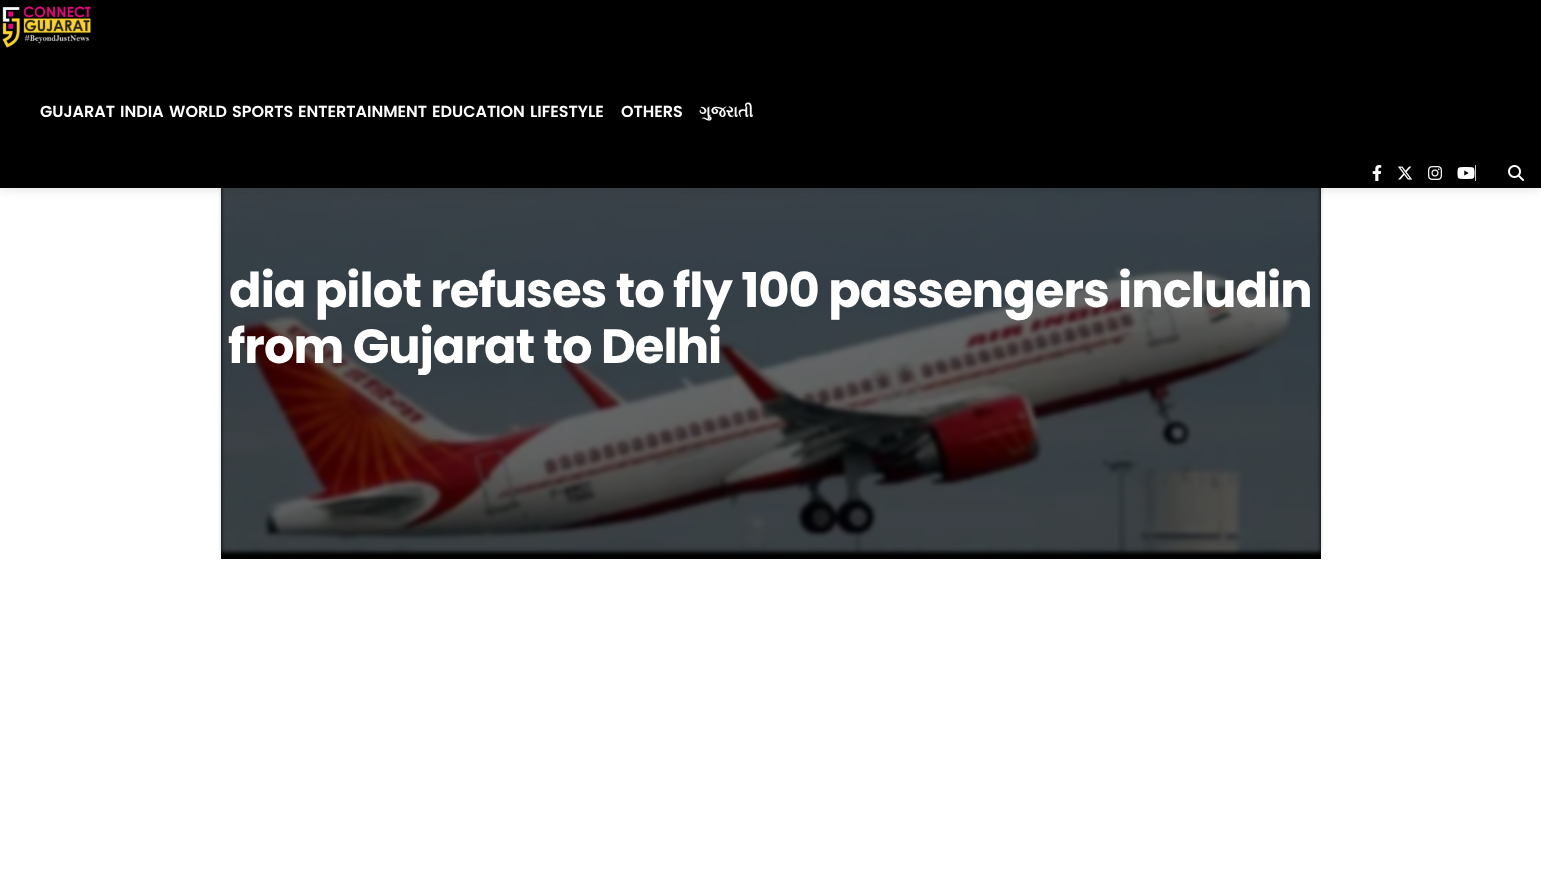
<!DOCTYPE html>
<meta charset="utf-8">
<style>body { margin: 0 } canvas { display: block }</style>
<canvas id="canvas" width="1541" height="893"></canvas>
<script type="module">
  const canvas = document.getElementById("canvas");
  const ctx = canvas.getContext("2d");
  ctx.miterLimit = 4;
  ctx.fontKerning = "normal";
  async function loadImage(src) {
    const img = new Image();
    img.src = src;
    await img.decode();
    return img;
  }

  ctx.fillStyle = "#ffffff";
  ctx.fillRect(0, 0, 1541, 893);
  ctx.fillStyle = "#000000";
  ctx.fillRect(221, 188, 1100, 371);
  ctx.drawImage(await loadImage("img7.png"), 218, 188, 1106, 367);
  ctx.fillStyle = "rgba(0, 0, 0, 0.1)";
  ctx.filter = "blur(5px)";
  ctx.beginPath();
  ctx.rect(0, 2, 1541, 188);
  ctx.fill();
  ctx.filter = "none";
  ctx.fillStyle = "#000000";
  ctx.fillRect(0, 0, 1541, 188);
  ctx.drawImage(await loadImage("img1.png"), 2, 6, 90, 42);
  ctx.font = "600 16px Poppins";
  ctx.fillStyle = "#ffffff";
  ctx.fillText("GUJARAT", 40, 117);
  ctx.fillText("INDIA", 120, 117);
  ctx.fillText("WORLD", 169, 117);
  ctx.fillText("SPORTS", 232, 117);
  ctx.fillText("ENTERTAINMENT", 298, 117);
  ctx.fillText("EDUCATION", 432, 117);
  ctx.fillText("LIFESTYLE", 530, 117);
  ctx.fillText("OTHERS", 621, 117);
  ctx.font = "bold 16px FreeSerif";
  ctx.fillText("ગુજરાતી", 699, 117);
  ctx.drawImage(await loadImage("img2.png"), 1372, 165, 10, 16);
  ctx.drawImage(await loadImage("img3.png"), 1398, 166, 15, 14);
  ctx.drawImage(await loadImage("img4.png"), 1428, 166, 14, 14);
  ctx.drawImage(await loadImage("img5.png"), 1457, 167, 18, 12);
  ctx.fillStyle = "#cdcaca";
  ctx.fillRect(1475, 165, 1, 16);
  ctx.drawImage(await loadImage("img6.png"), 1508, 165, 16, 16);
  ctx.letterSpacing = "-0.95px";
  ctx.font = "bold 48px Poppins";
  ctx.fillStyle = "#ffffff";
  ctx.fillText("dia pilot refuses to fly 100 passengers includin", 229, 307);
  ctx.save();
  ctx.beginPath();
  ctx.rect(108, 243, 1433, 132);
  ctx.clip();
  ctx.fillText("from Gujarat to Delhi", 228, 363);
  ctx.restore();
</script>
